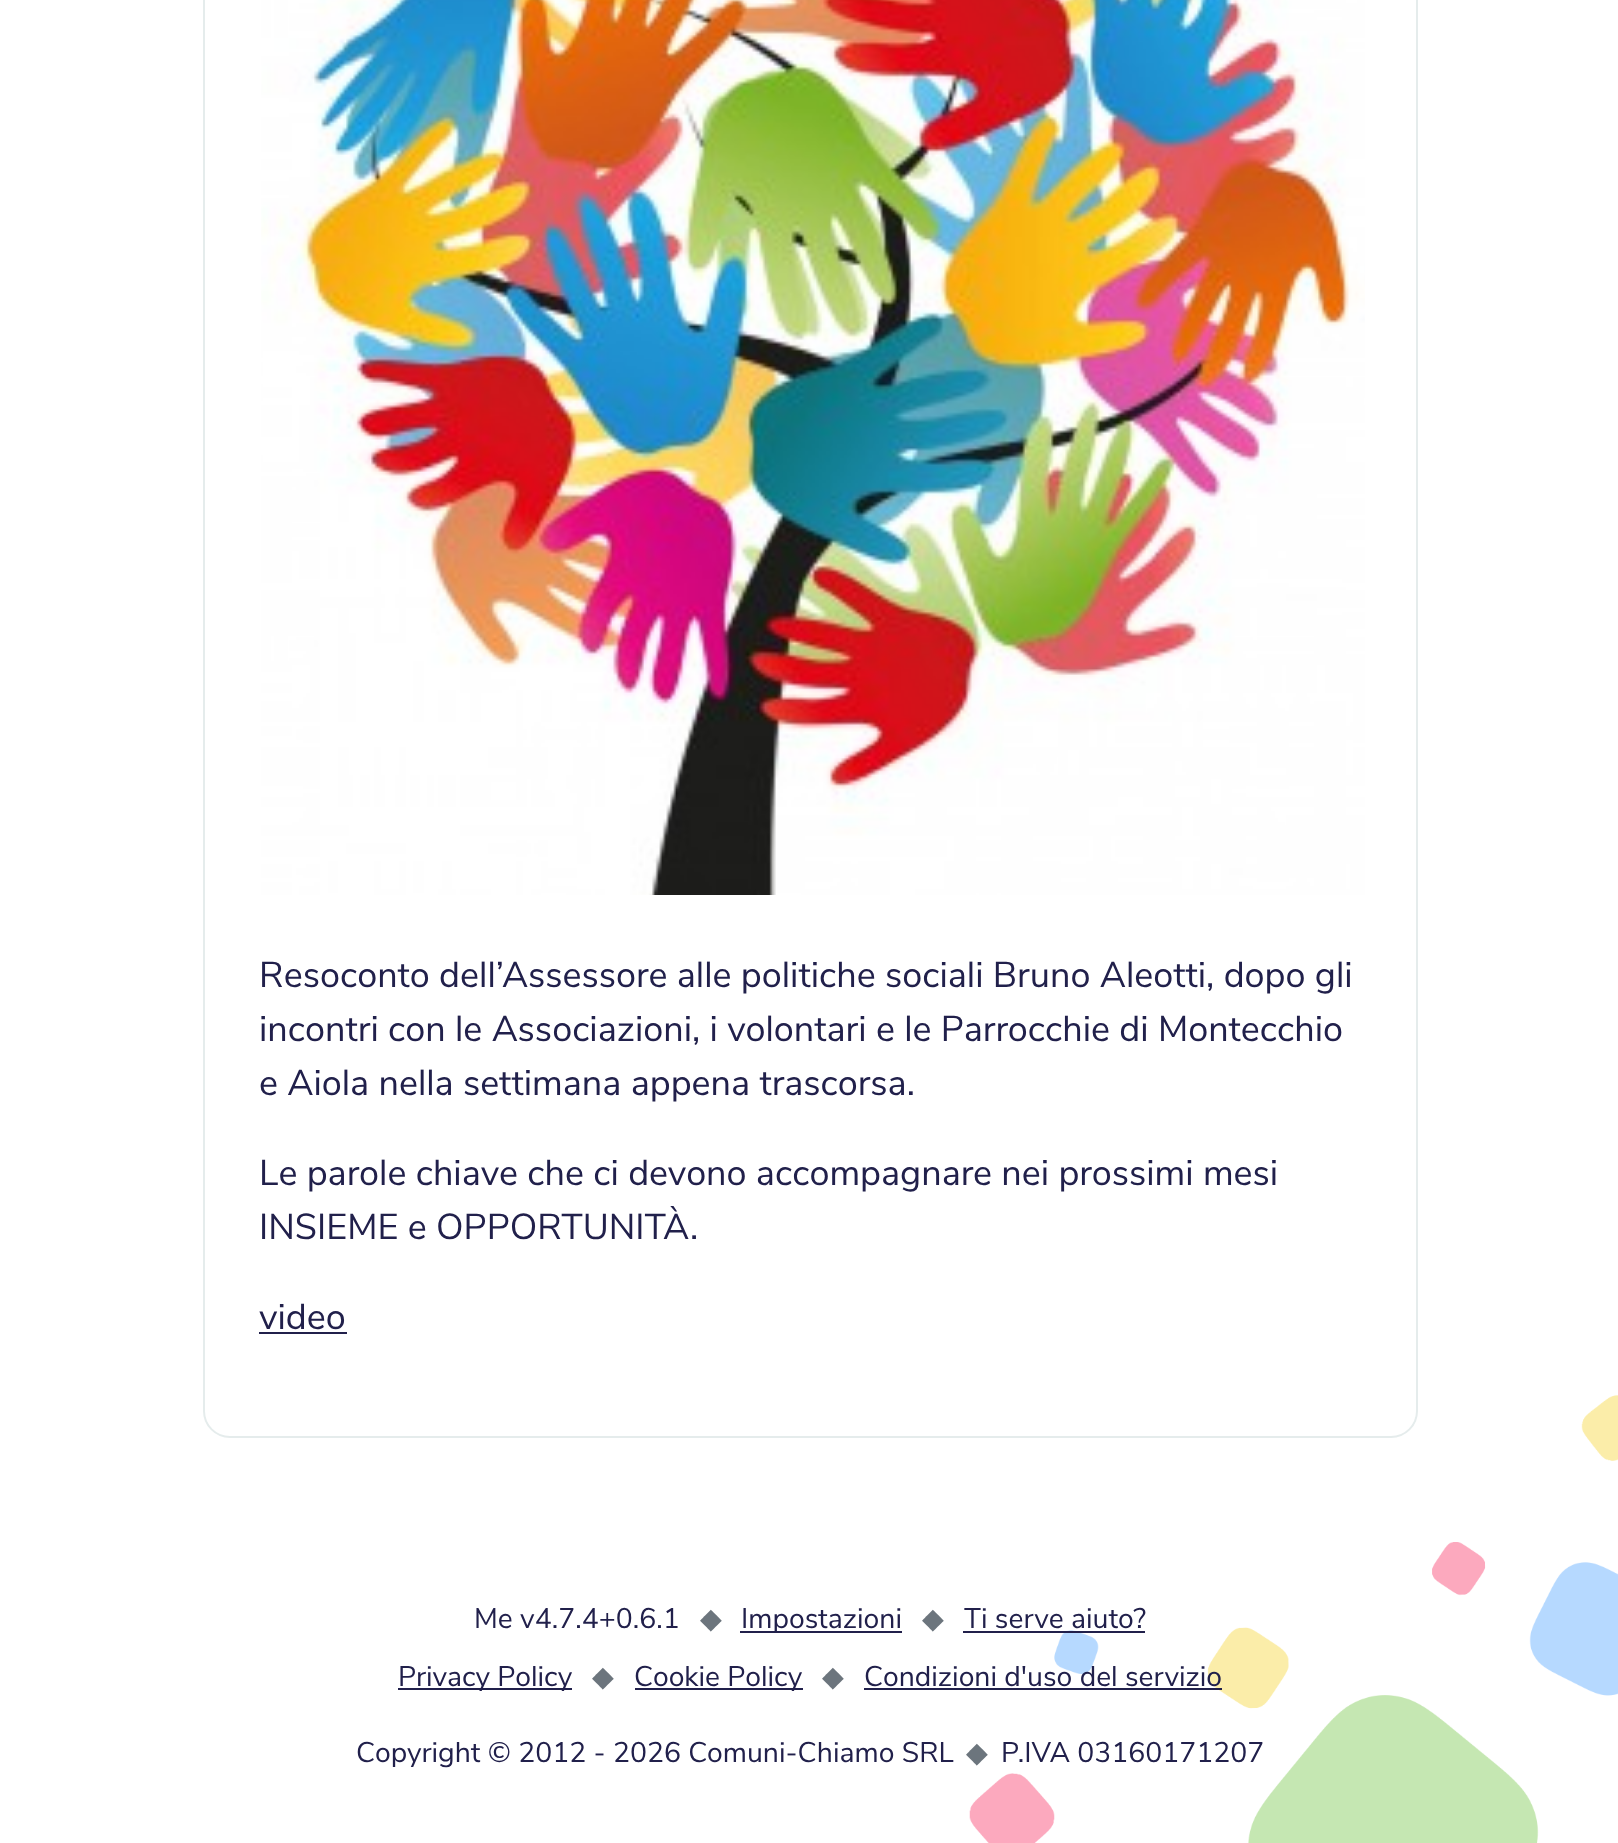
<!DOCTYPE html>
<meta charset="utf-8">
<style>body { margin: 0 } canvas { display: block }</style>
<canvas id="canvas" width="1618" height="1843"></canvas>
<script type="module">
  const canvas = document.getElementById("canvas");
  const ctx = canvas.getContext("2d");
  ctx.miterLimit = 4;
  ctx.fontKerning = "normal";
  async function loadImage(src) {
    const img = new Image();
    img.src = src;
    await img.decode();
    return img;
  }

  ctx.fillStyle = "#ffffff";
  ctx.fillRect(0, 0, 1618, 1843);
  ctx.drawImage(await loadImage("img1.png"), 969, 1395, 649, 448);
  ctx.beginPath();
  ctx.roundRect(204, -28, 1213, 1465, 26);
  ctx.strokeStyle = "#e5ecec";
  ctx.lineWidth = 2;
  ctx.stroke();
  ctx.drawImage(await loadImage("img2.png"), 261, 0, 1104, 895);
  ctx.font = "36px Nunito Sans";
  ctx.fillStyle = "#21204b";
  ctx.fillText("Resoconto dell’Assessore alle politiche sociali Bruno Aleotti, dopo gli", 259, 987);
  ctx.fillText("incontri con le Associazioni, i volontari e le Parrocchie di Montecchio", 259, 1041);
  ctx.fillText("e Aiola nella settimana appena trascorsa.", 259, 1095);
  ctx.fillText("Le parole chiave che ci devono accompagnare nei prossimi mesi", 259, 1185);
  ctx.fillText("INSIEME e OPPORTUNITÀ.", 259, 1239);
  ctx.fillText("video", 259, 1329);
  ctx.fillRect(259, 1332, 88, 2);
  ctx.font = "28.35px Nunito Sans";
  ctx.fillText("Me v4.7.4+0.6.1", 474, 1628);
  ctx.font = "28.35px DejaVu Sans";
  ctx.fillStyle = "#6c757d";
  ctx.fillText("◆", 700, 1628);
  ctx.fillStyle = "#21204b";
  ctx.fillRect(740, 1631, 162, 2);
  ctx.font = "28.35px Nunito Sans";
  ctx.fillText("Impostazioni", 741, 1628);
  ctx.font = "28.35px DejaVu Sans";
  ctx.fillStyle = "#6c757d";
  ctx.fillText("◆", 922, 1628);
  ctx.font = "28.35px Nunito Sans";
  ctx.fillStyle = "#21204b";
  ctx.fillText("Ti serve aiuto?", 964, 1628);
  ctx.fillRect(963, 1631, 182, 2);
  ctx.fillRect(398, 1688, 174, 2);
  ctx.fillText("Privacy Policy", 398, 1686);
  ctx.font = "28.35px DejaVu Sans";
  ctx.fillStyle = "#6c757d";
  ctx.fillText("◆", 592, 1686);
  ctx.fillStyle = "#21204b";
  ctx.fillRect(635, 1688, 168, 2);
  ctx.font = "28.35px Nunito Sans";
  ctx.fillText("Cookie Policy", 634, 1686);
  ctx.font = "28.35px DejaVu Sans";
  ctx.fillStyle = "#6c757d";
  ctx.fillText("◆", 822, 1686);
  ctx.font = "28.35px Nunito Sans";
  ctx.fillStyle = "#21204b";
  ctx.fillText("Condizioni d'uso del servizio", 864, 1686);
  ctx.fillRect(864, 1688, 358, 2);
  ctx.fillText("Copyright © 2012 - 2026 Comuni-Chiamo SRL", 356, 1762);
  ctx.font = "28.35px DejaVu Sans";
  ctx.fillStyle = "#6c757d";
  ctx.fillText("◆", 966, 1762);
  ctx.font = "28.35px Nunito Sans";
  ctx.fillStyle = "#21204b";
  ctx.fillText("P.IVA 03160171207", 1001, 1762);
</script>
